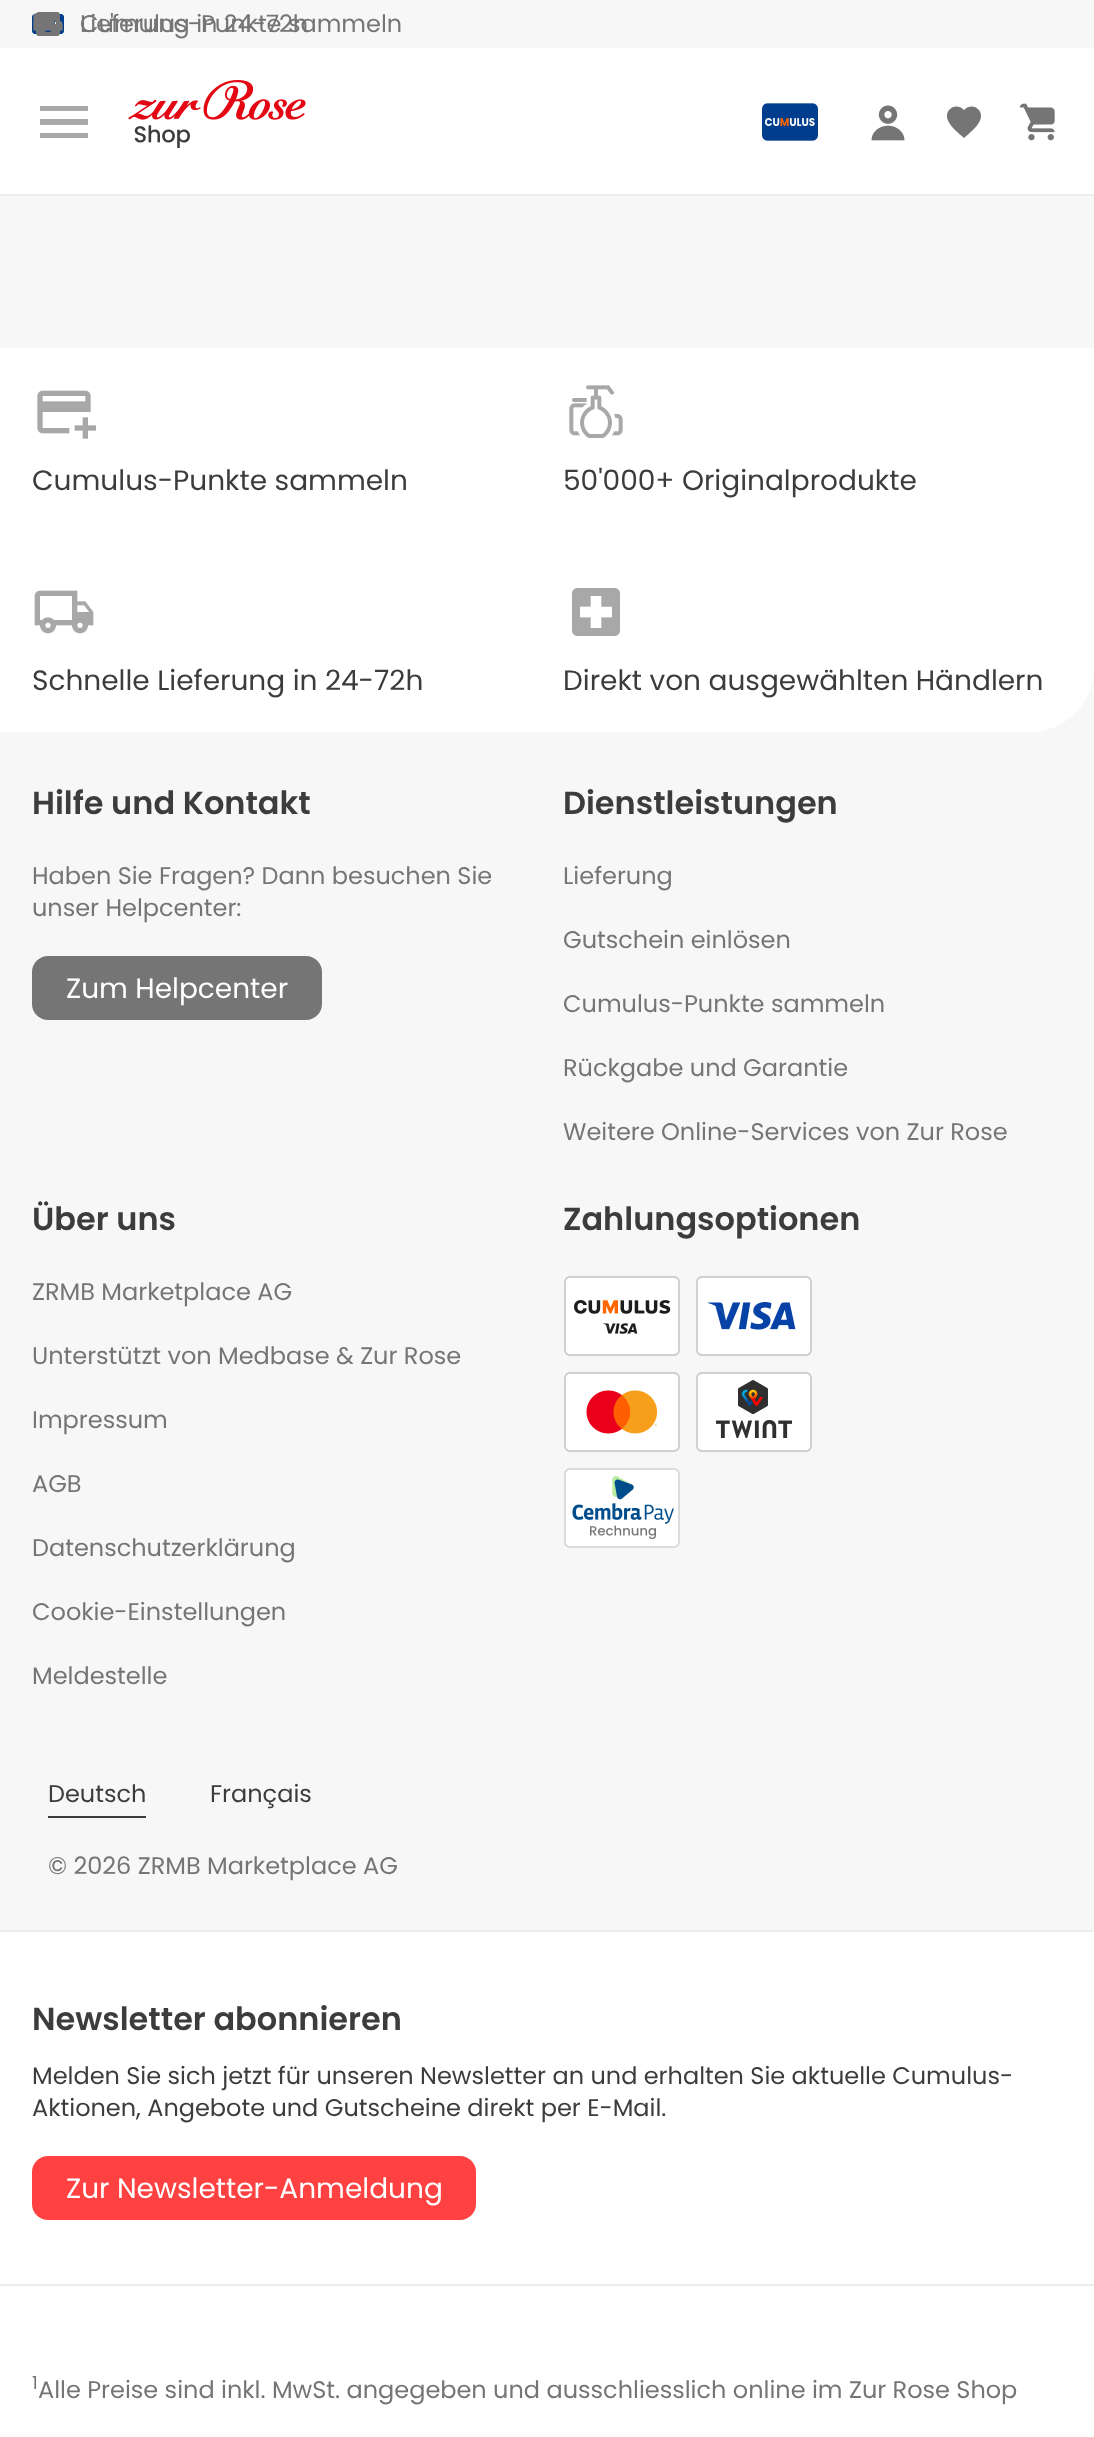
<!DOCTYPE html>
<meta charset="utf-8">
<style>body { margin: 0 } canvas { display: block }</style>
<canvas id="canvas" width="1094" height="2437"></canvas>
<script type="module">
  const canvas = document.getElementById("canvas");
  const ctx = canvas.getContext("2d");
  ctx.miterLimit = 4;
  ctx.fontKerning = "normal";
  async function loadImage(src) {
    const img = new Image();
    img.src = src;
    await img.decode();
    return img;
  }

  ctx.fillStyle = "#f7f7f7";
  ctx.fillRect(0, 0, 1094, 2437);
  ctx.fillStyle = "#ffffff";
  ctx.fillRect(0, 48, 1094, 146);
  ctx.fillStyle = "#ededed";
  ctx.fillRect(0, 194, 1094, 2);
  ctx.drawImage(await loadImage("img3.png"), 32, 14, 32, 20);
  ctx.drawImage(await loadImage("img2.png"), 33, 13, 30, 21);
  ctx.drawImage(await loadImage("img1.png"), 36, 12, 24, 24);
  ctx.font = "24px Poppins";
  ctx.fillStyle = "#757575";
  ctx.fillText("Cumulus-Punkte sammeln", 80, 32);
  ctx.fillText("Lieferung in 24-72h", 80, 32);
  ctx.fillText("'", 110, 32);
  ctx.fillStyle = "#a8a8a8";
  ctx.beginPath();
  ctx.moveTo(40, 138);
  ctx.lineTo(88, 138);
  ctx.lineTo(88, 133);
  ctx.lineTo(40, 133);
  ctx.closePath();
  ctx.moveTo(40, 125);
  ctx.lineTo(88, 125);
  ctx.lineTo(88, 119);
  ctx.lineTo(40, 119);
  ctx.closePath();
  ctx.moveTo(40, 106);
  ctx.lineTo(40, 111);
  ctx.lineTo(88, 111);
  ctx.lineTo(88, 106);
  ctx.closePath();
  ctx.fill();
  ctx.drawImage(await loadImage("img4.png"), 128, 80, 178, 68);
  ctx.drawImage(await loadImage("img5.png"), 762, 103, 56, 38);
  ctx.drawImage(await loadImage("img6.png"), 871, 105, 34, 36);
  ctx.fillStyle = "#757575";
  ctx.beginPath();
  ctx.moveTo(964, 138);
  ctx.bezierCurveTo(958.5, 133, 951, 127.5, 948, 120.5);
  ctx.bezierCurveTo(943, 109.5, 956.5, 101.5, 964, 110);
  ctx.bezierCurveTo(971.5, 101.5, 985, 109.5, 980, 120.5);
  ctx.bezierCurveTo(977, 127.5, 969.5, 133, 964, 138);
  ctx.closePath();
  ctx.fill();
  ctx.drawImage(await loadImage("img7.png"), 1019, 103, 36, 38);
  ctx.fillStyle = "#ffffff";
  ctx.beginPath();
  ctx.roundRect(0, 348, 1094, 384, [0, 0, 64, 0]);
  ctx.fill();
  ctx.drawImage(await loadImage("img8.png"), 37, 390, 59, 49);
  ctx.font = "28px Poppins";
  ctx.fillStyle = "#3c3c3c";
  ctx.fillText("Cumulus-Punkte sammeln", 32, 490);
  ctx.drawImage(await loadImage("img9.png"), 569, 385, 54, 53);
  ctx.fillText("50'000+ Originalprodukte", 563, 490);
  ctx.drawImage(await loadImage("img10.png"), 34, 590, 60, 44);
  ctx.fillText("Schnelle Lieferung in 24-72h", 32, 690);
  ctx.drawImage(await loadImage("img11.png"), 572, 588, 48, 48);
  ctx.fillText("Direkt von ausgewählten Händlern", 563, 690);
  ctx.font = "600 32px Poppins";
  ctx.fillText("Hilfe und Kontakt", 32, 814);
  ctx.font = "24px Poppins";
  ctx.fillStyle = "#757575";
  ctx.fillText("Haben Sie Fragen? Dann besuchen Sie", 32, 884);
  ctx.fillText("unser Helpcenter:", 32, 916);
  ctx.beginPath();
  ctx.roundRect(33, 957, 288, 62, 15);
  ctx.fill();
  ctx.strokeStyle = "#757575";
  ctx.lineWidth = 2;
  ctx.stroke();
  ctx.font = "28px Poppins";
  ctx.fillStyle = "#ffffff";
  ctx.fillText("Zum Helpcenter", 66, 998);
  ctx.font = "600 32px Poppins";
  ctx.fillStyle = "#3c3c3c";
  ctx.fillText("Dienstleistungen", 563, 814);
  ctx.font = "24px Poppins";
  ctx.fillStyle = "#757575";
  ctx.fillText("Lieferung", 563, 884);
  ctx.fillText("Gutschein einlösen", 563, 948);
  ctx.fillText("Cumulus-Punkte sammeln", 563, 1012);
  ctx.fillText("Rückgabe und Garantie", 563, 1076);
  ctx.fillText("Weitere Online-Services von Zur Rose", 563, 1140);
  ctx.font = "600 32px Poppins";
  ctx.fillStyle = "#3c3c3c";
  ctx.fillText("Über uns", 32, 1230);
  ctx.font = "24px Poppins";
  ctx.fillStyle = "#757575";
  ctx.fillText("ZRMB Marketplace AG", 32, 1300);
  ctx.fillText("Unterstützt von Medbase & Zur Rose", 32, 1364);
  ctx.fillText("Impressum", 32, 1428);
  ctx.fillText("AGB", 32, 1492);
  ctx.fillText("Datenschutzerklärung", 32, 1556);
  ctx.fillText("Cookie-Einstellungen", 32, 1620);
  ctx.fillText("Meldestelle", 32, 1684);
  ctx.font = "600 32px Poppins";
  ctx.fillStyle = "#3c3c3c";
  ctx.fillText("Zahlungsoptionen", 563, 1230);
  ctx.drawImage(await loadImage("img12.png"), 564, 1276, 116, 80);
  ctx.drawImage(await loadImage("img13.png"), 696, 1276, 116, 80);
  ctx.drawImage(await loadImage("img14.png"), 564, 1372, 116, 80);
  ctx.drawImage(await loadImage("img15.png"), 696, 1372, 116, 80);
  ctx.drawImage(await loadImage("img16.png"), 564, 1468, 116, 80);
  ctx.fillRect(48, 1816, 98, 2);
  ctx.font = "24px Poppins";
  ctx.fillText("Deutsch", 48, 1802);
  ctx.fillText("Français", 210, 1802);
  ctx.fillStyle = "#757575";
  ctx.fillText("© 2026 ZRMB Marketplace AG", 48, 1874);
  ctx.fillStyle = "#ffffff";
  ctx.fillRect(0, 1932, 1094, 352);
  ctx.fillStyle = "#ededed";
  ctx.fillRect(0, 1930, 1094, 2);
  ctx.font = "600 32px Poppins";
  ctx.fillStyle = "#3c3c3c";
  ctx.fillText("Newsletter abonnieren", 32, 2030);
  ctx.font = "24px Poppins";
  ctx.fillText("Melden Sie sich jetzt für unseren Newsletter an und erhalten Sie aktuelle Cumulus-", 32, 2084);
  ctx.fillText("Aktionen, Angebote und Gutscheine direkt per E-Mail.", 32, 2116);
  ctx.fillStyle = "#ff4141";
  ctx.beginPath();
  ctx.roundRect(33, 2157, 442, 62, 15);
  ctx.fill();
  ctx.strokeStyle = "#ff4141";
  ctx.stroke();
  ctx.font = "28px Poppins";
  ctx.fillStyle = "#ffffff";
  ctx.fillText("Zur Newsletter-Anmeldung", 66, 2198);
  ctx.fillRect(0, 2286, 1094, 151);
  ctx.fillStyle = "#ededed";
  ctx.fillRect(0, 2284, 1094, 2);
  ctx.font = "18px Poppins";
  ctx.fillStyle = "#757575";
  ctx.fillText("1", 32, 2389);
  ctx.font = "24px Poppins";
  ctx.fillText("Alle Preise sind inkl. MwSt. angegeben und ausschliesslich online im Zur Rose Shop", 38, 2398);
</script>
